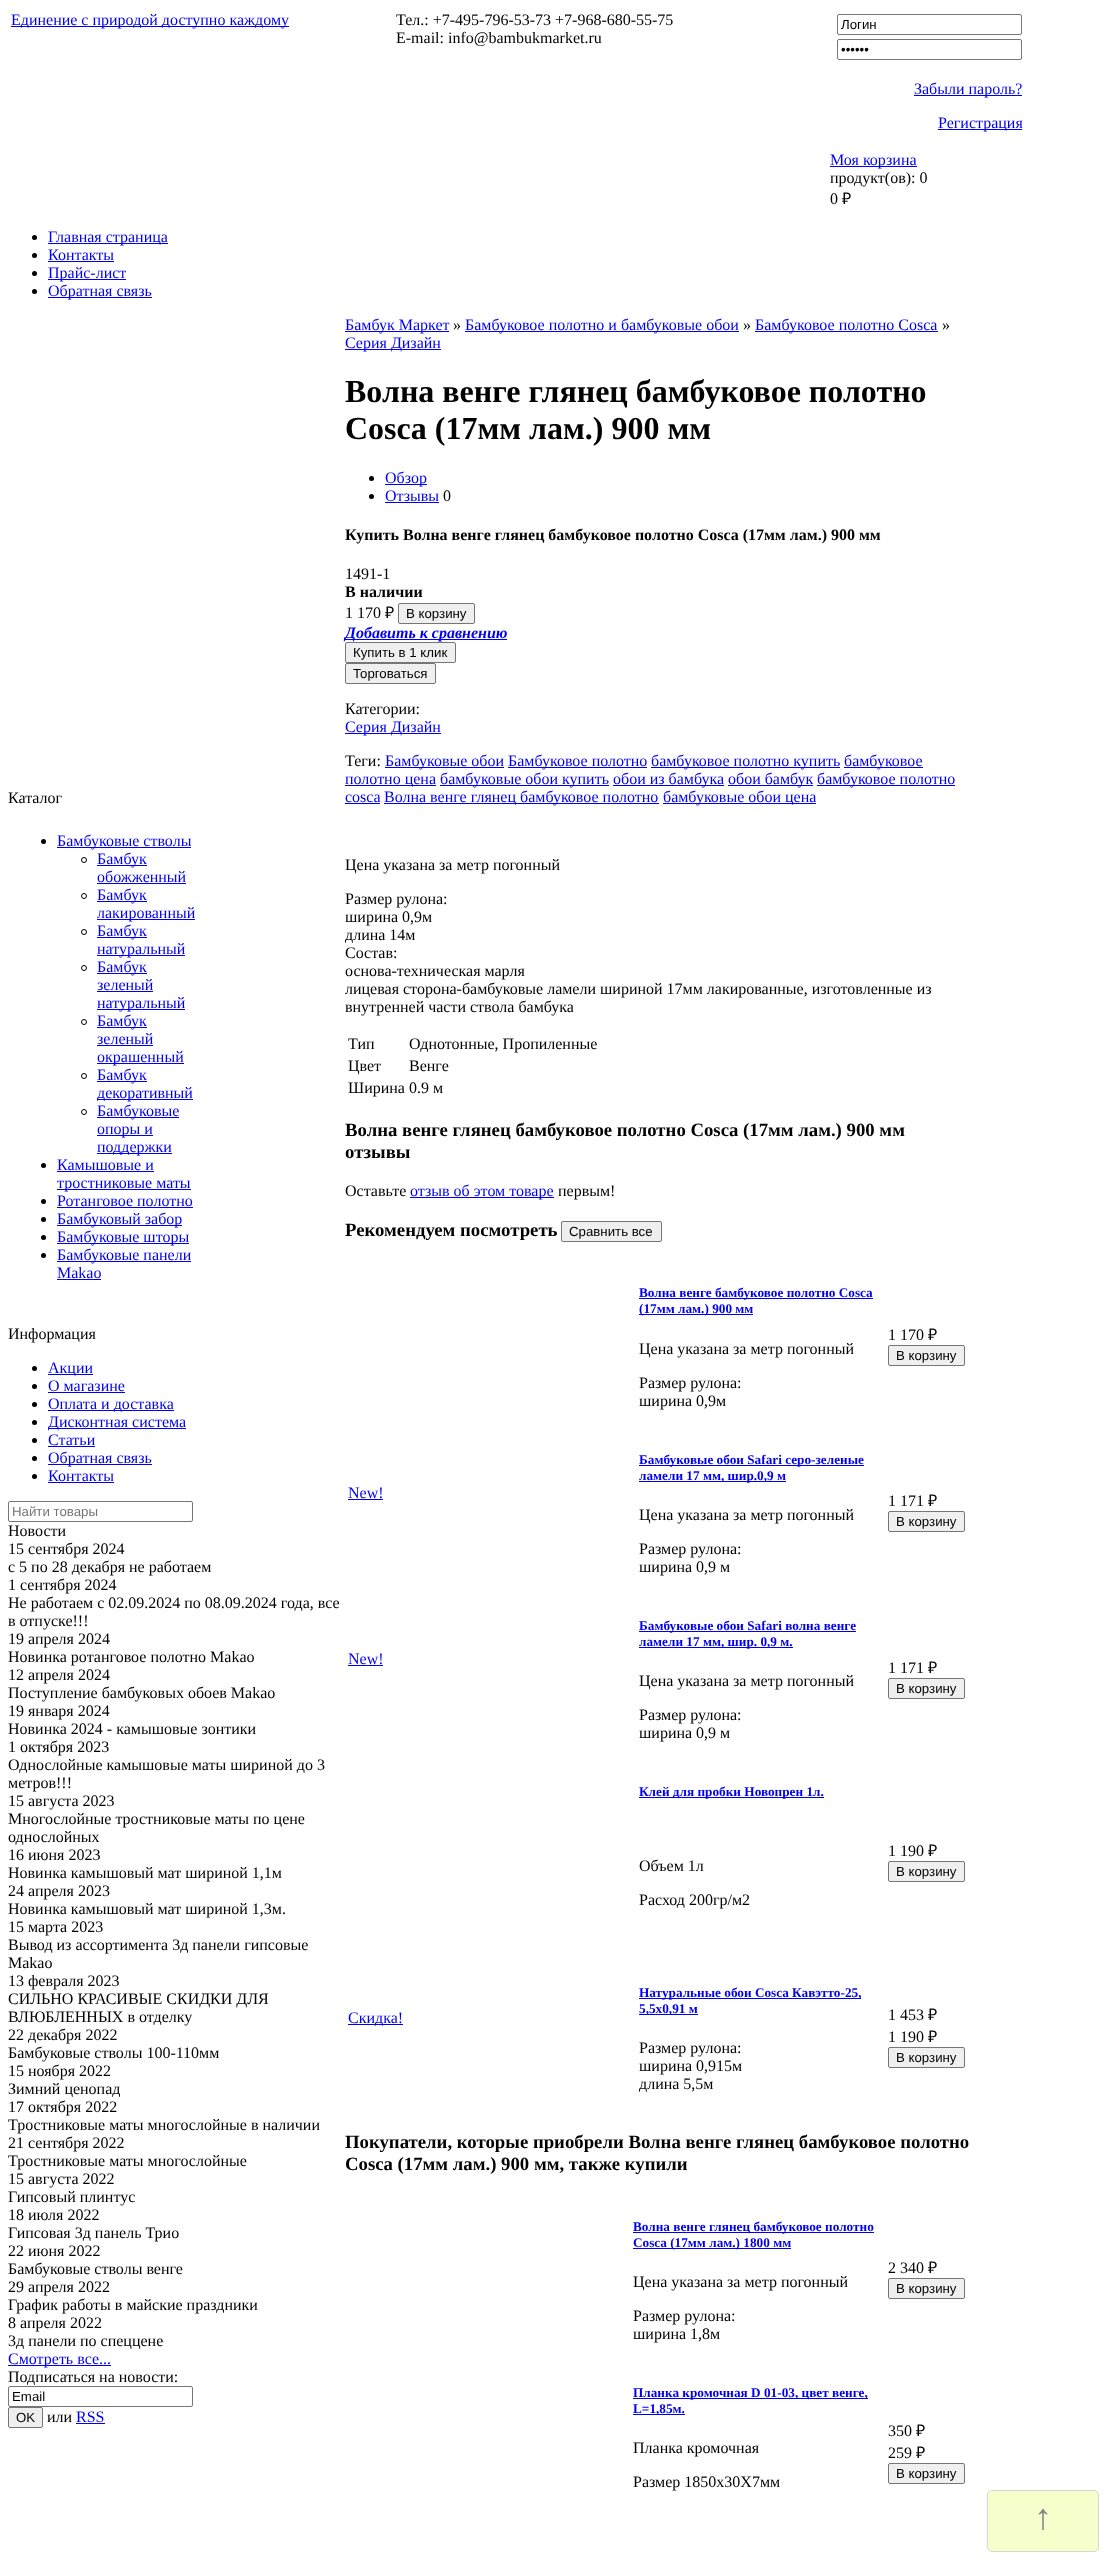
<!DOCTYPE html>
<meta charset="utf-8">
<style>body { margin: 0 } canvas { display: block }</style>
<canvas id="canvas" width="1109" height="2562"></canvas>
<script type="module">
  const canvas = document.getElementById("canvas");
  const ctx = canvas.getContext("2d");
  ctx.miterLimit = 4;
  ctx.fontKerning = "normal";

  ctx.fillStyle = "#ffffff";
  ctx.fillRect(0, 0, 1109, 2562);
  ctx.fillStyle = "#0000ee";
  ctx.fillRect(11, 26, 278, 1);
  ctx.font = "16px Liberation Serif";
  ctx.fillText("Единение с природой доступно каждому", 11, 25);
  ctx.fillStyle = "#000000";
  ctx.fillText("Тел.: +7-495-796-53-73 +7-968-680-55-75", 396, 25);
  ctx.fillText("E-mail: info@bambukmarket.ru", 396, 43);
  ctx.beginPath();
  ctx.roundRect(837.5, 14.5, 184, 20, 1.5);
  ctx.strokeStyle = "#767676";
  ctx.stroke();
  ctx.font = "13.25px Liberation Sans";
  ctx.fillText("Логин", 841, 29);
  ctx.beginPath();
  ctx.roundRect(837.5, 39.5, 184, 20, 1.5);
  ctx.stroke();
  ctx.fillText("••••••", 841, 54);
  ctx.fillStyle = "#0000ee";
  ctx.fillRect(914, 95, 108, 1);
  ctx.font = "16px Liberation Serif";
  ctx.fillText("Забыли пароль?", 914, 94);
  ctx.fillRect(938, 129, 84, 1);
  ctx.fillText("Регистрация", 938, 128);
  ctx.fillRect(830, 166, 87, 1);
  ctx.fillText("Моя корзина", 830, 165);
  ctx.fillStyle = "#000000";
  ctx.fillText("продукт(ов): 0", 830, 183);
  ctx.fillText("0", 830, 204);
  ctx.font = "16px Noto Sans";
  ctx.fillText("₽", 842, 204);
  ctx.beginPath();
  ctx.arc(34.5, 237.5, 2.5, 0, Math.PI * 2);
  ctx.fill();
  ctx.fillStyle = "#0000ee";
  ctx.fillRect(48, 243, 120, 1);
  ctx.font = "16px Liberation Serif";
  ctx.fillText("Главная страница", 48, 242);
  ctx.fillStyle = "#000000";
  ctx.beginPath();
  ctx.arc(34.5, 255.5, 2.5, 0, Math.PI * 2);
  ctx.fill();
  ctx.fillStyle = "#0000ee";
  ctx.fillText("Контакты", 48, 260);
  ctx.fillRect(48, 261, 66, 1);
  ctx.fillStyle = "#000000";
  ctx.beginPath();
  ctx.arc(34.5, 273.5, 2.5, 0, Math.PI * 2);
  ctx.fill();
  ctx.fillStyle = "#0000ee";
  ctx.fillRect(48, 279, 78, 1);
  ctx.fillText("Прайс-лист", 48, 278);
  ctx.fillStyle = "#000000";
  ctx.beginPath();
  ctx.arc(34.5, 291.5, 2.5, 0, Math.PI * 2);
  ctx.fill();
  ctx.fillStyle = "#0000ee";
  ctx.fillRect(48, 297, 104, 1);
  ctx.fillText("Обратная связь", 48, 296);
  ctx.fillStyle = "#000000";
  ctx.fillText("Каталог", 8, 803);
  ctx.beginPath();
  ctx.arc(43.5, 841.5, 2.5, 0, Math.PI * 2);
  ctx.fill();
  ctx.fillStyle = "#0000ee";
  ctx.fillRect(57, 847, 134, 1);
  ctx.fillText("Бамбуковые стволы", 57, 846);
  ctx.beginPath();
  ctx.arc(84, 860, 2.5, 0, Math.PI * 2);
  ctx.strokeStyle = "#000000";
  ctx.stroke();
  ctx.fillRect(97, 865, 50, 1);
  ctx.fillText("Бамбук", 97, 864);
  ctx.fillText("обожженный", 97, 882);
  ctx.fillRect(97, 883, 89, 1);
  ctx.beginPath();
  ctx.arc(84, 896, 2.5, 0, Math.PI * 2);
  ctx.stroke();
  ctx.fillRect(97, 901, 50, 1);
  ctx.fillText("Бамбук", 97, 900);
  ctx.fillRect(97, 919, 98, 1);
  ctx.fillText("лакированный", 97, 918);
  ctx.beginPath();
  ctx.arc(84, 932, 2.5, 0, Math.PI * 2);
  ctx.stroke();
  ctx.fillRect(97, 937, 50, 1);
  ctx.fillText("Бамбук", 97, 936);
  ctx.fillRect(97, 955, 88, 1);
  ctx.fillText("натуральный", 97, 954);
  ctx.beginPath();
  ctx.arc(84, 968, 2.5, 0, Math.PI * 2);
  ctx.stroke();
  ctx.fillRect(97, 973, 50, 1);
  ctx.fillText("Бамбук", 97, 972);
  ctx.fillText("зеленый", 97, 990);
  ctx.fillRect(97, 991, 56, 1);
  ctx.fillRect(97, 1009, 88, 1);
  ctx.fillText("натуральный", 97, 1008);
  ctx.beginPath();
  ctx.arc(84, 1022, 2.5, 0, Math.PI * 2);
  ctx.stroke();
  ctx.fillRect(97, 1027, 50, 1);
  ctx.fillText("Бамбук", 97, 1026);
  ctx.fillText("зеленый", 97, 1044);
  ctx.fillRect(97, 1045, 56, 1);
  ctx.fillRect(97, 1063, 87, 1);
  ctx.fillText("окрашенный", 97, 1062);
  ctx.beginPath();
  ctx.arc(84, 1076, 2.5, 0, Math.PI * 2);
  ctx.stroke();
  ctx.fillRect(97, 1081, 50, 1);
  ctx.fillText("Бамбук", 97, 1080);
  ctx.fillRect(97, 1099, 96, 1);
  ctx.fillText("декоративный", 97, 1098);
  ctx.beginPath();
  ctx.arc(84, 1112, 2.5, 0, Math.PI * 2);
  ctx.stroke();
  ctx.fillRect(97, 1117, 82, 1);
  ctx.fillText("Бамбуковые", 97, 1116);
  ctx.fillRect(97, 1135, 56, 1);
  ctx.fillText("опоры и", 97, 1134);
  ctx.fillRect(97, 1153, 75, 1);
  ctx.fillText("поддержки", 97, 1152);
  ctx.fillStyle = "#000000";
  ctx.beginPath();
  ctx.arc(43.5, 1165.5, 2.5, 0, Math.PI * 2);
  ctx.fill();
  ctx.fillStyle = "#0000ee";
  ctx.fillText("Камышовые и", 57, 1170);
  ctx.fillRect(57, 1171, 97, 1);
  ctx.fillRect(57, 1189, 134, 1);
  ctx.fillText("тростниковые маты", 57, 1188);
  ctx.fillStyle = "#000000";
  ctx.beginPath();
  ctx.arc(43.5, 1201.5, 2.5, 0, Math.PI * 2);
  ctx.fill();
  ctx.fillStyle = "#0000ee";
  ctx.fillText("Ротанговое полотно", 57, 1206);
  ctx.fillRect(57, 1207, 136, 1);
  ctx.fillStyle = "#000000";
  ctx.beginPath();
  ctx.arc(43.5, 1219.5, 2.5, 0, Math.PI * 2);
  ctx.fill();
  ctx.fillStyle = "#0000ee";
  ctx.fillRect(57, 1225, 125, 1);
  ctx.fillText("Бамбуковый забор", 57, 1224);
  ctx.fillStyle = "#000000";
  ctx.beginPath();
  ctx.arc(43.5, 1237.5, 2.5, 0, Math.PI * 2);
  ctx.fill();
  ctx.fillStyle = "#0000ee";
  ctx.fillRect(57, 1243, 132, 1);
  ctx.fillText("Бамбуковые шторы", 57, 1242);
  ctx.fillStyle = "#000000";
  ctx.beginPath();
  ctx.arc(43.5, 1255.5, 2.5, 0, Math.PI * 2);
  ctx.fill();
  ctx.fillStyle = "#0000ee";
  ctx.fillRect(57, 1261, 134, 1);
  ctx.fillText("Бамбуковые панели", 57, 1260);
  ctx.fillText("Makao", 57, 1278);
  ctx.fillRect(57, 1279, 44, 1);
  ctx.fillStyle = "#000000";
  ctx.fillText("Информация", 8, 1339);
  ctx.beginPath();
  ctx.arc(34.5, 1368.5, 2.5, 0, Math.PI * 2);
  ctx.fill();
  ctx.fillStyle = "#0000ee";
  ctx.fillRect(48, 1374, 45, 1);
  ctx.fillText("Акции", 48, 1373);
  ctx.fillStyle = "#000000";
  ctx.beginPath();
  ctx.arc(34.5, 1386.5, 2.5, 0, Math.PI * 2);
  ctx.fill();
  ctx.fillStyle = "#0000ee";
  ctx.fillText("О магазине", 48, 1391);
  ctx.fillRect(48, 1392, 77, 1);
  ctx.fillStyle = "#000000";
  ctx.beginPath();
  ctx.arc(34.5, 1404.5, 2.5, 0, Math.PI * 2);
  ctx.fill();
  ctx.fillStyle = "#0000ee";
  ctx.fillRect(48, 1410, 126, 1);
  ctx.fillText("Оплата и доставка", 48, 1409);
  ctx.fillStyle = "#000000";
  ctx.beginPath();
  ctx.arc(34.5, 1422.5, 2.5, 0, Math.PI * 2);
  ctx.fill();
  ctx.fillStyle = "#0000ee";
  ctx.fillRect(48, 1428, 138, 1);
  ctx.fillText("Дисконтная система", 48, 1427);
  ctx.fillStyle = "#000000";
  ctx.beginPath();
  ctx.arc(34.5, 1440.5, 2.5, 0, Math.PI * 2);
  ctx.fill();
  ctx.fillStyle = "#0000ee";
  ctx.fillText("Статьи", 48, 1445);
  ctx.fillRect(48, 1446, 47, 1);
  ctx.fillStyle = "#000000";
  ctx.beginPath();
  ctx.arc(34.5, 1458.5, 2.5, 0, Math.PI * 2);
  ctx.fill();
  ctx.fillStyle = "#0000ee";
  ctx.fillRect(48, 1464, 104, 1);
  ctx.fillText("Обратная связь", 48, 1463);
  ctx.fillStyle = "#000000";
  ctx.beginPath();
  ctx.arc(34.5, 1476.5, 2.5, 0, Math.PI * 2);
  ctx.fill();
  ctx.fillStyle = "#0000ee";
  ctx.fillText("Контакты", 48, 1481);
  ctx.fillRect(48, 1482, 66, 1);
  ctx.beginPath();
  ctx.roundRect(8.5, 1501.5, 184, 20, 1.5);
  ctx.strokeStyle = "#767676";
  ctx.stroke();
  ctx.font = "13.25px Liberation Sans";
  ctx.fillStyle = "#757575";
  ctx.fillText("Найти товары", 12, 1516);
  ctx.font = "16px Liberation Serif";
  ctx.fillStyle = "#000000";
  ctx.fillText("Новости", 8, 1536);
  ctx.fillText("15 сентября 2024", 8, 1554);
  ctx.fillText("с 5 по 28 декабря не работаем", 8, 1572);
  ctx.fillText("1 сентября 2024", 8, 1590);
  ctx.fillText("Не работаем с 02.09.2024 по 08.09.2024 года, все", 8, 1608);
  ctx.fillText("в отпуске!!!", 8, 1626);
  ctx.fillText("19 апреля 2024", 8, 1644);
  ctx.fillText("Новинка ротанговое полотно Makao", 8, 1662);
  ctx.fillText("12 апреля 2024", 8, 1680);
  ctx.fillText("Поступление бамбуковых обоев Makao", 8, 1698);
  ctx.fillText("19 января 2024", 8, 1716);
  ctx.fillText("Новинка 2024 - камышовые зонтики", 8, 1734);
  ctx.fillText("1 октября 2023", 8, 1752);
  ctx.fillText("Однослойные камышовые маты шириной до 3", 8, 1770);
  ctx.fillText("метров!!!", 8, 1788);
  ctx.fillText("15 августа 2023", 8, 1806);
  ctx.fillText("Многослойные тростниковые маты по цене", 8, 1824);
  ctx.fillText("однослойных", 8, 1842);
  ctx.fillText("16 июня 2023", 8, 1860);
  ctx.fillText("Новинка камышовый мат шириной 1,1м", 8, 1878);
  ctx.fillText("24 апреля 2023", 8, 1896);
  ctx.fillText("Новинка камышовый мат шириной 1,3м.", 8, 1914);
  ctx.fillText("15 марта 2023", 8, 1932);
  ctx.fillText("Вывод из ассортимента 3д панели гипсовые", 8, 1950);
  ctx.fillText("Makao", 8, 1968);
  ctx.fillText("13 февраля 2023", 8, 1986);
  ctx.fillText("СИЛЬНО КРАСИВЫЕ СКИДКИ ДЛЯ", 8, 2004);
  ctx.fillText("ВЛЮБЛЕННЫХ в отделку", 8, 2022);
  ctx.fillText("22 декабря 2022", 8, 2040);
  ctx.fillText("Бамбуковые стволы 100-110мм", 8, 2058);
  ctx.fillText("15 ноября 2022", 8, 2076);
  ctx.fillText("Зимний ценопад", 8, 2094);
  ctx.fillText("17 октября 2022", 8, 2112);
  ctx.fillText("Тростниковые маты многослойные в наличии", 8, 2130);
  ctx.fillText("21 сентября 2022", 8, 2148);
  ctx.fillText("Тростниковые маты многослойные", 8, 2166);
  ctx.fillText("15 августа 2022", 8, 2184);
  ctx.fillText("Гипсовый плинтус", 8, 2202);
  ctx.fillText("18 июля 2022", 8, 2220);
  ctx.fillText("Гипсовая 3д панель Трио", 8, 2238);
  ctx.fillText("22 июня 2022", 8, 2256);
  ctx.fillText("Бамбуковые стволы венге", 8, 2274);
  ctx.fillText("29 апреля 2022", 8, 2292);
  ctx.fillText("График работы в майские праздники", 8, 2310);
  ctx.fillText("8 апреля 2022", 8, 2328);
  ctx.fillText("3д панели по спеццене", 8, 2346);
  ctx.fillStyle = "#0000ee";
  ctx.fillRect(8, 2365, 103, 1);
  ctx.fillText("Смотреть все...", 8, 2364);
  ctx.fillStyle = "#000000";
  ctx.fillText("Подписаться на новости:", 8, 2382);
  ctx.beginPath();
  ctx.roundRect(8.5, 2386.5, 184, 20, 1.5);
  ctx.stroke();
  ctx.font = "13.25px Liberation Sans";
  ctx.fillText("Email", 12, 2401);
  ctx.fillStyle = "#efefef";
  ctx.beginPath();
  ctx.roundRect(8.5, 2407.5, 34, 20, 1.5);
  ctx.fill();
  ctx.stroke();
  ctx.fillStyle = "#000000";
  ctx.fillText("OK", 16, 2422);
  ctx.font = "16px Liberation Serif";
  ctx.fillText("или", 47, 2422);
  ctx.fillStyle = "#0000ee";
  ctx.fillText("RSS", 76, 2422);
  ctx.fillRect(76, 2423, 29, 1);
  ctx.fillRect(345, 331, 104, 1);
  ctx.fillText("Бамбук Маркет", 345, 330);
  ctx.fillStyle = "#000000";
  ctx.fillText("»", 453, 330);
  ctx.fillStyle = "#0000ee";
  ctx.fillRect(465, 331, 274, 1);
  ctx.fillText("Бамбуковое полотно и бамбуковые обои", 465, 330);
  ctx.fillStyle = "#000000";
  ctx.fillText("»", 743, 330);
  ctx.fillStyle = "#0000ee";
  ctx.fillRect(755, 331, 183, 1);
  ctx.fillText("Бамбуковое полотно Cosca", 755, 330);
  ctx.fillStyle = "#000000";
  ctx.fillText("»", 942, 330);
  ctx.fillStyle = "#0000ee";
  ctx.fillRect(345, 349, 96, 1);
  ctx.fillText("Серия Дизайн", 345, 348);
  ctx.font = "bold 32px Liberation Serif";
  ctx.fillStyle = "#000000";
  ctx.fillText("Волна венге глянец бамбуковое полотно", 345, 402);
  ctx.fillText("Cosca (17мм лам.) 900 мм", 345, 439);
  ctx.beginPath();
  ctx.arc(371.5, 478.5, 2.5, 0, Math.PI * 2);
  ctx.fill();
  ctx.fillStyle = "#0000ee";
  ctx.fillRect(385, 484, 42, 1);
  ctx.font = "16px Liberation Serif";
  ctx.fillText("Обзор", 385, 483);
  ctx.fillStyle = "#000000";
  ctx.beginPath();
  ctx.arc(371.5, 496.5, 2.5, 0, Math.PI * 2);
  ctx.fill();
  ctx.fillStyle = "#0000ee";
  ctx.fillText("Отзывы", 385, 501);
  ctx.fillRect(385, 502, 54, 1);
  ctx.fillStyle = "#000000";
  ctx.fillText("0", 443, 501);
  ctx.font = "bold 16px Liberation Serif";
  ctx.fillText("Купить Волна венге глянец бамбуковое полотно Cosca (17мм лам.) 900 мм", 345, 540);
  ctx.font = "16px Liberation Serif";
  ctx.fillText("1491-1", 345, 579);
  ctx.font = "bold 16px Liberation Serif";
  ctx.fillText("В наличии", 345, 597);
  ctx.font = "16px Liberation Serif";
  ctx.fillText("1 170", 345, 618);
  ctx.font = "16px Noto Sans";
  ctx.fillText("₽", 385, 618);
  ctx.fillStyle = "#efefef";
  ctx.beginPath();
  ctx.roundRect(398.5, 603.5, 76, 20, 1.5);
  ctx.fill();
  ctx.stroke();
  ctx.font = "13.25px Liberation Sans";
  ctx.fillStyle = "#000000";
  ctx.fillText("В корзину", 406, 618);
  ctx.fillStyle = "#0000ee";
  ctx.fillRect(345, 639, 162, 1);
  ctx.font = "italic bold 16px Liberation Serif";
  ctx.fillText("Добавить к сравнению", 345, 638);
  ctx.fillStyle = "#efefef";
  ctx.beginPath();
  ctx.roundRect(345.5, 642.5, 110, 20, 1.5);
  ctx.fill();
  ctx.stroke();
  ctx.font = "13.25px Liberation Sans";
  ctx.fillStyle = "#000000";
  ctx.fillText("Купить в 1 клик", 353, 657);
  ctx.fillStyle = "#efefef";
  ctx.beginPath();
  ctx.roundRect(345.5, 663.5, 90, 20, 1.5);
  ctx.fill();
  ctx.stroke();
  ctx.fillStyle = "#000000";
  ctx.fillText("Торговаться", 353, 678);
  ctx.font = "16px Liberation Serif";
  ctx.fillText("Категории:", 345, 714);
  ctx.fillStyle = "#0000ee";
  ctx.fillRect(345, 733, 96, 1);
  ctx.fillText("Серия Дизайн", 345, 732);
  ctx.fillStyle = "#000000";
  ctx.fillText("Теги:", 345, 766);
  ctx.fillStyle = "#0000ee";
  ctx.fillRect(385, 767, 119, 1);
  ctx.fillText("Бамбуковые обои", 385, 766);
  ctx.fillRect(508, 767, 139, 1);
  ctx.fillText("Бамбуковое полотно", 508, 766);
  ctx.fillRect(651, 767, 189, 1);
  ctx.fillText("бамбуковое полотно купить", 651, 766);
  ctx.fillRect(844, 767, 79, 1);
  ctx.fillText("бамбуковое", 844, 766);
  ctx.fillRect(345, 785, 91, 1);
  ctx.fillText("полотно цена", 345, 784);
  ctx.fillRect(440, 785, 169, 1);
  ctx.fillText("бамбуковые обои купить", 440, 784);
  ctx.fillRect(613, 785, 111, 1);
  ctx.fillText("обои из бамбука", 613, 784);
  ctx.fillRect(728, 785, 85, 1);
  ctx.fillText("обои бамбук", 728, 784);
  ctx.fillRect(817, 785, 138, 1);
  ctx.fillText("бамбуковое полотно", 817, 784);
  ctx.fillText("cosca", 345, 802);
  ctx.fillRect(345, 803, 35, 1);
  ctx.fillRect(384, 803, 275, 1);
  ctx.fillText("Волна венге глянец бамбуковое полотно", 384, 802);
  ctx.fillRect(663, 803, 153, 1);
  ctx.fillText("бамбуковые обои цена", 663, 802);
  ctx.fillStyle = "#000000";
  ctx.fillText("Цена указана за метр погонный", 345, 870);
  ctx.fillText("Размер рулона:", 345, 904);
  ctx.fillText("ширина 0,9м", 345, 922);
  ctx.fillText("длина 14м", 345, 940);
  ctx.fillText("Состав:", 345, 958);
  ctx.fillText("основа-техническая марля", 345, 976);
  ctx.fillText("лицевая сторона-бамбуковые ламели шириной 17мм лакированные, изготовленные из", 345, 994);
  ctx.fillText("внутренней части ствола бамбука", 345, 1012);
  ctx.fillText("Тип", 348, 1049);
  ctx.fillText("Однотонные, Пропиленные", 409, 1049);
  ctx.fillText("Цвет", 348, 1071);
  ctx.fillText("Венге", 409, 1071);
  ctx.fillText("Ширина 0.9 м", 348, 1093);
  ctx.font = "bold 18.75px Liberation Serif";
  ctx.fillText("Волна венге глянец бамбуковое полотно Cosca (17мм лам.) 900 мм", 345, 1136);
  ctx.fillText("отзывы", 345, 1158);
  ctx.font = "16px Liberation Serif";
  ctx.fillText("Оставьте", 345, 1196);
  ctx.fillStyle = "#0000ee";
  ctx.fillRect(410, 1197, 144, 1);
  ctx.fillText("отзыв об этом товаре", 410, 1196);
  ctx.fillStyle = "#000000";
  ctx.fillText("первым!", 558, 1196);
  ctx.font = "bold 18.75px Liberation Serif";
  ctx.fillText("Рекомендуем посмотреть", 345, 1236);
  ctx.fillStyle = "#efefef";
  ctx.beginPath();
  ctx.roundRect(561.5, 1221.5, 100, 20, 1.5);
  ctx.fill();
  ctx.stroke();
  ctx.font = "13.25px Liberation Sans";
  ctx.fillStyle = "#000000";
  ctx.fillText("Сравнить все", 569, 1236);
  ctx.fillStyle = "#0000ee";
  ctx.fillRect(639, 1298, 234, 1);
  ctx.font = "bold 13.25px Liberation Serif";
  ctx.fillText("Волна венге бамбуковое полотно Cosca", 639, 1297);
  ctx.fillRect(639, 1314, 114, 1);
  ctx.fillText("(17мм лам.) 900 мм", 639, 1313);
  ctx.font = "16px Liberation Serif";
  ctx.fillStyle = "#000000";
  ctx.fillText("Цена указана за метр погонный", 639, 1354);
  ctx.fillText("Размер рулона:", 639, 1388);
  ctx.fillText("ширина 0,9м", 639, 1406);
  ctx.fillText("1 170", 888, 1340);
  ctx.font = "16px Noto Sans";
  ctx.fillText("₽", 928, 1340);
  ctx.fillStyle = "#efefef";
  ctx.beginPath();
  ctx.roundRect(888.5, 1345.5, 76, 20, 1.5);
  ctx.fill();
  ctx.stroke();
  ctx.font = "13.25px Liberation Sans";
  ctx.fillStyle = "#000000";
  ctx.fillText("В корзину", 896, 1360);
  ctx.font = "16px Liberation Serif";
  ctx.fillStyle = "#0000ee";
  ctx.fillText("New!", 348, 1498);
  ctx.fillRect(348, 1499, 35, 1);
  ctx.fillRect(639, 1465, 225, 1);
  ctx.font = "bold 13.25px Liberation Serif";
  ctx.fillText("Бамбуковые обои Safari серо-зеленые", 639, 1464);
  ctx.fillRect(639, 1481, 147, 1);
  ctx.fillText("ламели 17 мм, шир.0,9 м", 639, 1480);
  ctx.font = "16px Liberation Serif";
  ctx.fillStyle = "#000000";
  ctx.fillText("Цена указана за метр погонный", 639, 1520);
  ctx.fillText("Размер рулона:", 639, 1554);
  ctx.fillText("ширина 0,9 м", 639, 1572);
  ctx.fillText("1 171", 888, 1506);
  ctx.font = "16px Noto Sans";
  ctx.fillText("₽", 928, 1506);
  ctx.fillStyle = "#efefef";
  ctx.beginPath();
  ctx.roundRect(888.5, 1511.5, 76, 20, 1.5);
  ctx.fill();
  ctx.stroke();
  ctx.font = "13.25px Liberation Sans";
  ctx.fillStyle = "#000000";
  ctx.fillText("В корзину", 896, 1526);
  ctx.font = "16px Liberation Serif";
  ctx.fillStyle = "#0000ee";
  ctx.fillText("New!", 348, 1664);
  ctx.fillRect(348, 1665, 35, 1);
  ctx.fillRect(639, 1631, 217, 1);
  ctx.font = "bold 13.25px Liberation Serif";
  ctx.fillText("Бамбуковые обои Safari волна венге", 639, 1630);
  ctx.fillRect(639, 1647, 154, 1);
  ctx.fillText("ламели 17 мм, шир. 0,9 м.", 639, 1646);
  ctx.font = "16px Liberation Serif";
  ctx.fillStyle = "#000000";
  ctx.fillText("Цена указана за метр погонный", 639, 1686);
  ctx.fillText("Размер рулона:", 639, 1720);
  ctx.fillText("ширина 0,9 м", 639, 1738);
  ctx.fillText("1 171", 888, 1673);
  ctx.font = "16px Noto Sans";
  ctx.fillText("₽", 928, 1673);
  ctx.fillStyle = "#efefef";
  ctx.beginPath();
  ctx.roundRect(888.5, 1678.5, 76, 20, 1.5);
  ctx.fill();
  ctx.stroke();
  ctx.font = "13.25px Liberation Sans";
  ctx.fillStyle = "#000000";
  ctx.fillText("В корзину", 896, 1693);
  ctx.fillStyle = "#0000ee";
  ctx.fillRect(639, 1797, 185, 1);
  ctx.font = "bold 13.25px Liberation Serif";
  ctx.fillText("Клей для пробки Новопрен 1л.", 639, 1796);
  ctx.font = "16px Liberation Serif";
  ctx.fillStyle = "#000000";
  ctx.fillText("Объем 1л", 639, 1871);
  ctx.fillText("Расход 200гр/м2", 639, 1905);
  ctx.fillText("1 190", 888, 1856);
  ctx.font = "16px Noto Sans";
  ctx.fillText("₽", 928, 1856);
  ctx.fillStyle = "#efefef";
  ctx.beginPath();
  ctx.roundRect(888.5, 1861.5, 76, 20, 1.5);
  ctx.fill();
  ctx.stroke();
  ctx.font = "13.25px Liberation Sans";
  ctx.fillStyle = "#000000";
  ctx.fillText("В корзину", 896, 1876);
  ctx.fillStyle = "#0000ee";
  ctx.fillRect(348, 2024, 55, 1);
  ctx.font = "16px Liberation Serif";
  ctx.fillText("Скидка!", 348, 2023);
  ctx.fillRect(639, 1998, 222, 1);
  ctx.font = "bold 13.25px Liberation Serif";
  ctx.fillText("Натуральные обои Cosca Кавэтто-25,", 639, 1997);
  ctx.fillRect(639, 2014, 59, 1);
  ctx.fillText("5,5х0,91 м", 639, 2013);
  ctx.font = "16px Liberation Serif";
  ctx.fillStyle = "#000000";
  ctx.fillText("Размер рулона:", 639, 2053);
  ctx.fillText("ширина 0,915м", 639, 2071);
  ctx.fillText("длина 5,5м", 639, 2089);
  ctx.fillText("1 453", 888, 2020);
  ctx.font = "16px Noto Sans";
  ctx.fillText("₽", 928, 2020);
  ctx.font = "16px Liberation Serif";
  ctx.fillText("1 190", 888, 2042);
  ctx.font = "16px Noto Sans";
  ctx.fillText("₽", 928, 2042);
  ctx.fillStyle = "#efefef";
  ctx.beginPath();
  ctx.roundRect(888.5, 2047.5, 76, 20, 1.5);
  ctx.fill();
  ctx.stroke();
  ctx.font = "13.25px Liberation Sans";
  ctx.fillStyle = "#000000";
  ctx.fillText("В корзину", 896, 2062);
  ctx.font = "bold 18.75px Liberation Serif";
  ctx.fillText("Покупатели, которые приобрели Волна венге глянец бамбуковое полотно", 345, 2148);
  ctx.fillText("Cosca (17мм лам.) 900 мм, также купили", 345, 2170);
  ctx.fillStyle = "#0000ee";
  ctx.fillRect(633, 2232, 241, 1);
  ctx.font = "bold 13.25px Liberation Serif";
  ctx.fillText("Волна венге глянец бамбуковое полотно", 633, 2231);
  ctx.fillRect(633, 2248, 158, 1);
  ctx.fillText("Cosca (17мм лам.) 1800 мм", 633, 2247);
  ctx.font = "16px Liberation Serif";
  ctx.fillStyle = "#000000";
  ctx.fillText("Цена указана за метр погонный", 633, 2287);
  ctx.fillText("Размер рулона:", 633, 2321);
  ctx.fillText("ширина 1,8м", 633, 2339);
  ctx.fillText("2 340", 888, 2273);
  ctx.font = "16px Noto Sans";
  ctx.fillText("₽", 928, 2273);
  ctx.fillStyle = "#efefef";
  ctx.beginPath();
  ctx.roundRect(888.5, 2278.5, 76, 20, 1.5);
  ctx.fill();
  ctx.stroke();
  ctx.font = "13.25px Liberation Sans";
  ctx.fillStyle = "#000000";
  ctx.fillText("В корзину", 896, 2293);
  ctx.fillStyle = "#0000ee";
  ctx.fillRect(633, 2398, 235, 1);
  ctx.font = "bold 13.25px Liberation Serif";
  ctx.fillText("Планка кромочная D 01-03, цвет венге,", 633, 2397);
  ctx.fillRect(633, 2414, 52, 1);
  ctx.fillText("L=1,85м.", 633, 2413);
  ctx.font = "16px Liberation Serif";
  ctx.fillStyle = "#000000";
  ctx.fillText("Планка кромочная", 633, 2453);
  ctx.fillText("Размер 1850х30Х7мм", 633, 2487);
  ctx.fillText("350", 888, 2436);
  ctx.font = "16px Noto Sans";
  ctx.fillText("₽", 916, 2436);
  ctx.font = "16px Liberation Serif";
  ctx.fillText("259", 888, 2458);
  ctx.font = "16px Noto Sans";
  ctx.fillText("₽", 916, 2458);
  ctx.fillStyle = "#efefef";
  ctx.beginPath();
  ctx.roundRect(888.5, 2463.5, 76, 20, 1.5);
  ctx.fill();
  ctx.stroke();
  ctx.font = "13.25px Liberation Sans";
  ctx.fillStyle = "#000000";
  ctx.fillText("В корзину", 896, 2478);
  ctx.fillStyle = "#f6ffcc";
  ctx.beginPath();
  ctx.roundRect(987.5, 2490.5, 111, 61, 4.5);
  ctx.fill();
  ctx.strokeStyle = "#d6d6d6";
  ctx.stroke();
  ctx.font = "36px Liberation Serif";
  ctx.fillStyle = "#858585";
  ctx.fillText("↑", 1034, 2529);
</script>
